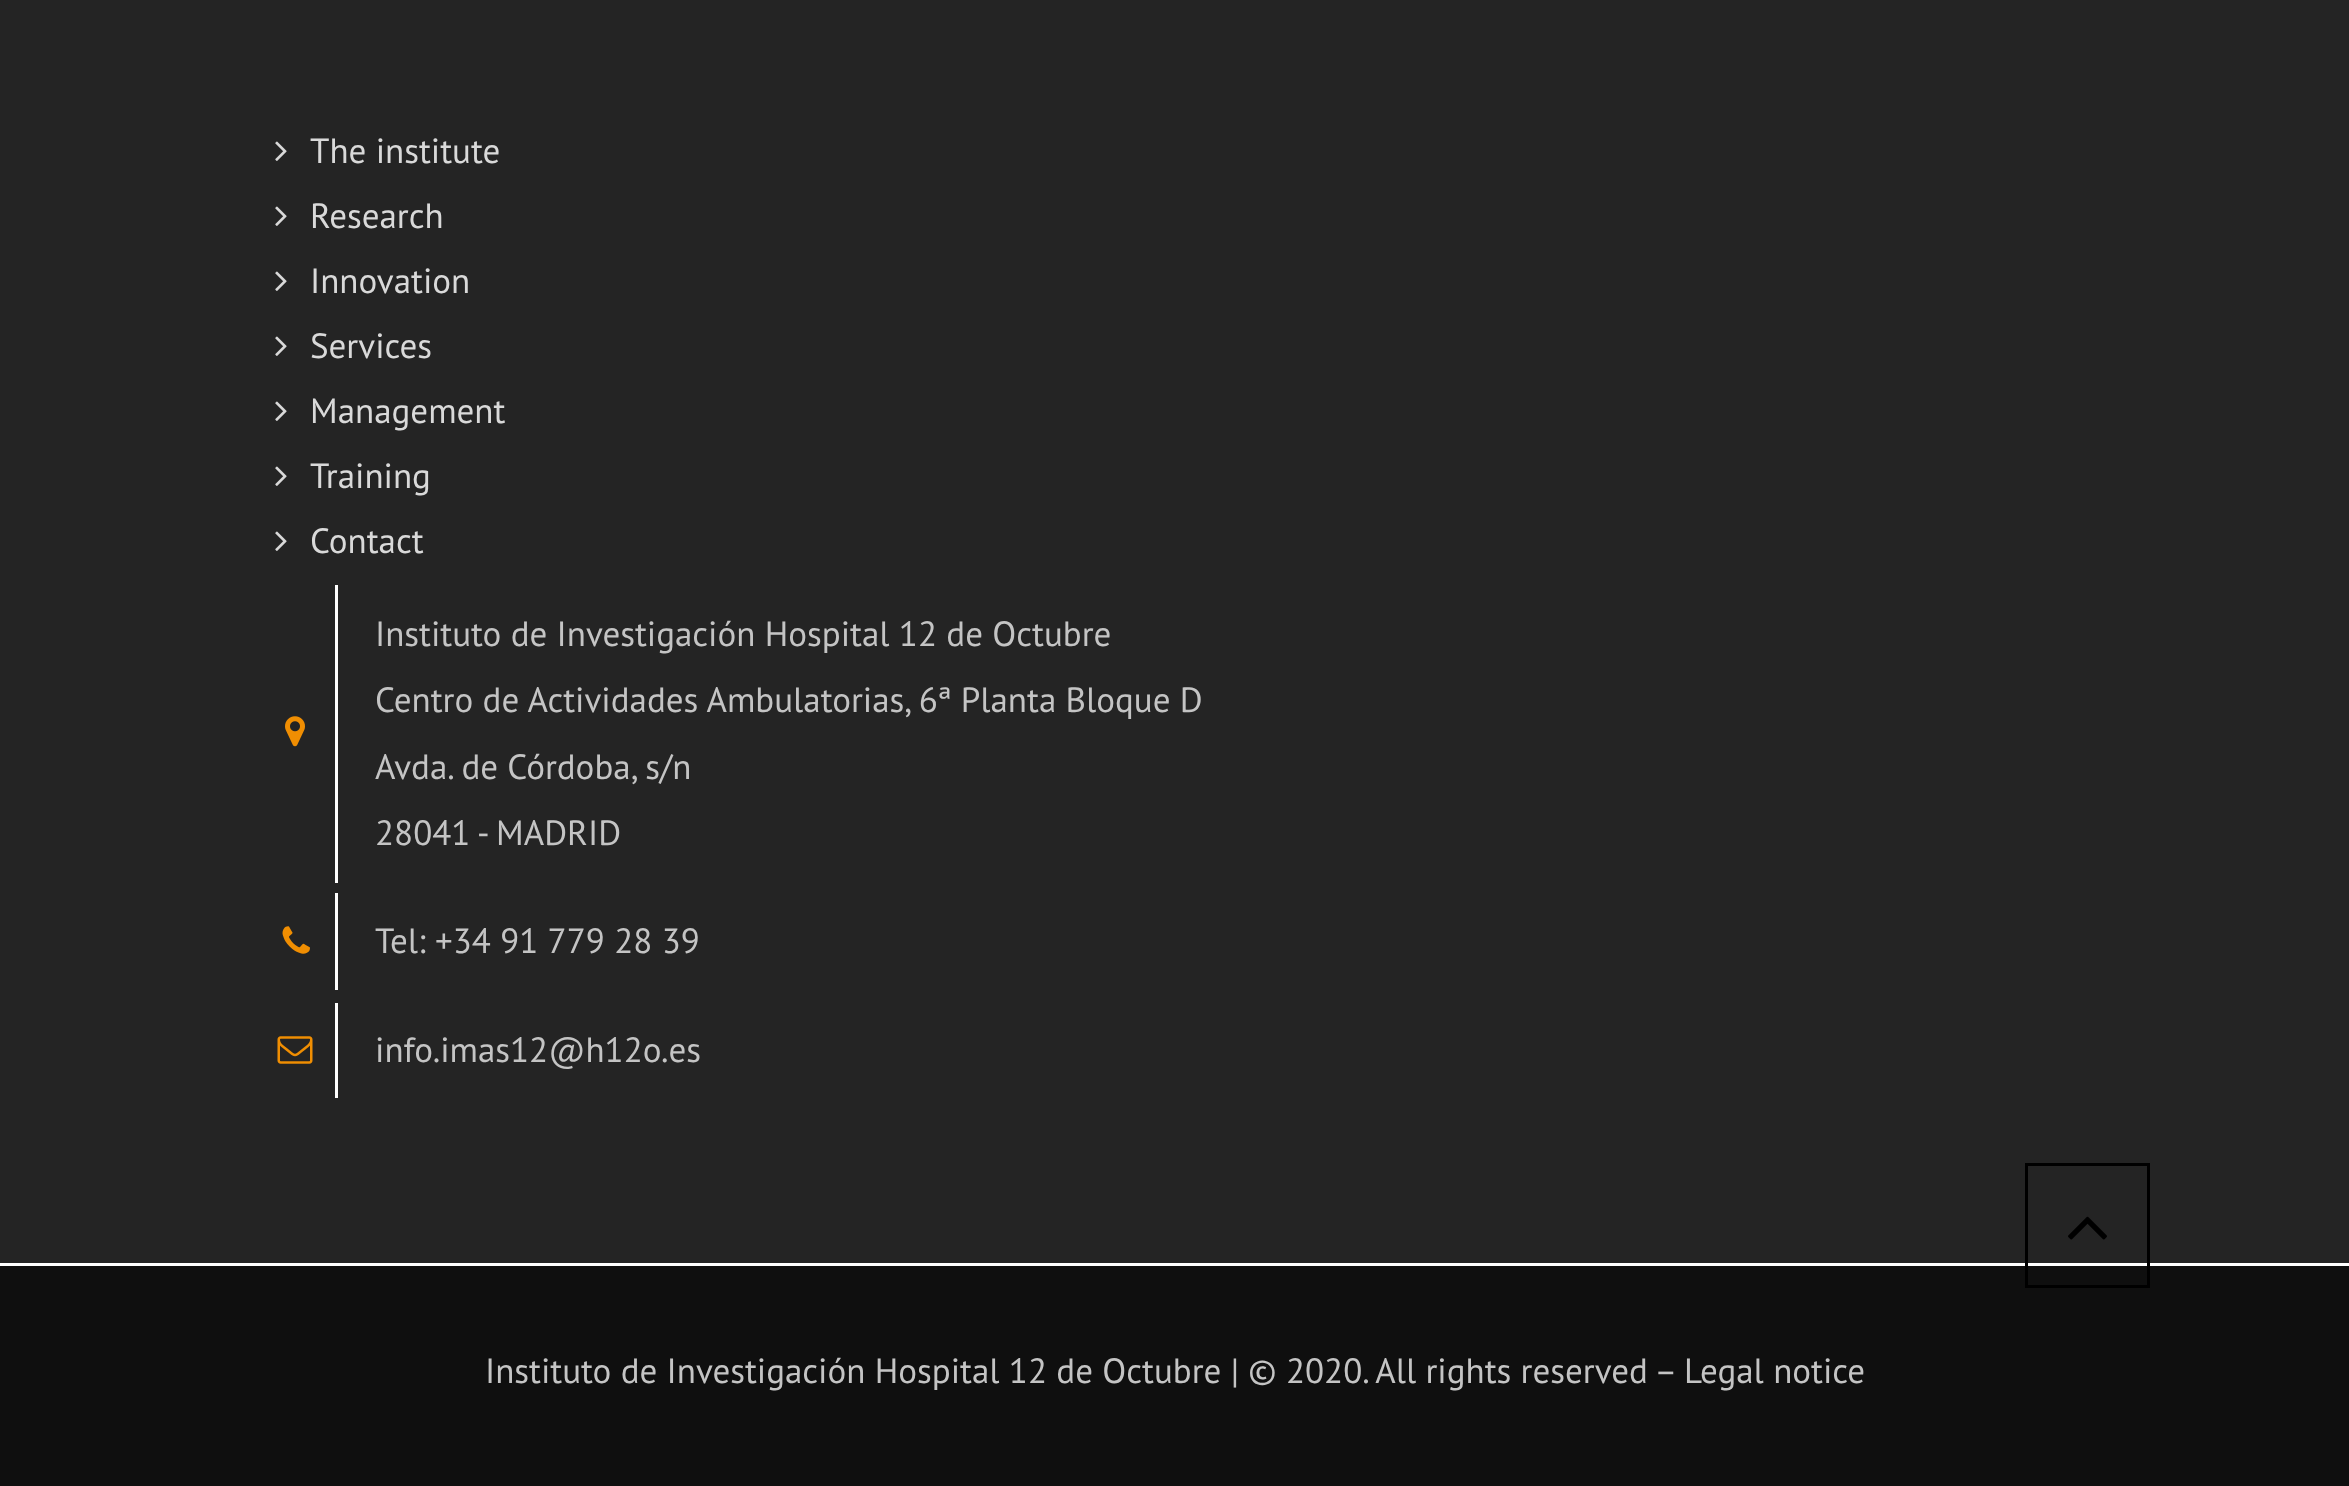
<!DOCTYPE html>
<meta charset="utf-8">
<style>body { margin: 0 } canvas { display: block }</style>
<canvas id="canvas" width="2349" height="1486"></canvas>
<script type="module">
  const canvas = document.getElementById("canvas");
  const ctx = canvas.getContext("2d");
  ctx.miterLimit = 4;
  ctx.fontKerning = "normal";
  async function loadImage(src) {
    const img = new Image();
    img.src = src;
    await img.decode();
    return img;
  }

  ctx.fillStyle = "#242424";
  ctx.fillRect(0, 0, 2349, 1486);
  ctx.drawImage(await loadImage("img1.png"), 275, 141, 12, 20);
  ctx.font = "35px PT Sans";
  ctx.fillStyle = "#d9d9d9";
  ctx.fillText("The institute", 310, 163);
  ctx.drawImage(await loadImage("img1.png"), 275, 206, 12, 20);
  ctx.fillText("Research", 310, 228);
  ctx.drawImage(await loadImage("img1.png"), 275, 271, 12, 20);
  ctx.fillText("Innovation", 310, 293);
  ctx.drawImage(await loadImage("img1.png"), 275, 336, 12, 20);
  ctx.fillText("Services", 310, 358);
  ctx.drawImage(await loadImage("img1.png"), 275, 401, 12, 20);
  ctx.fillText("Management", 310, 423);
  ctx.drawImage(await loadImage("img1.png"), 275, 466, 12, 20);
  ctx.fillText("Training", 310, 488);
  ctx.drawImage(await loadImage("img1.png"), 275, 531, 12, 20);
  ctx.fillText("Contact", 310, 553);
  ctx.fillStyle = "#ffffff";
  ctx.fillRect(335, 585, 3, 298);
  ctx.fillStyle = "#c4c4c4";
  ctx.fillText("Instituto de Investigación Hospital 12 de Octubre", 375, 646);
  ctx.fillText("Centro de Actividades Ambulatorias, 6ª Planta Bloque D", 375, 712);
  ctx.drawImage(await loadImage("img2.png"), 285, 716, 20, 31);
  ctx.fillText("Avda. de Córdoba, s/n", 375, 779);
  ctx.fillText("28041 - MADRID", 375, 845);
  ctx.drawImage(await loadImage("img3.png"), 282, 926, 28, 28);
  ctx.fillStyle = "#ffffff";
  ctx.fillRect(335, 893, 3, 97);
  ctx.fillStyle = "#c4c4c4";
  ctx.fillText("Tel: +34 91 779 28 39", 375, 953);
  ctx.drawImage(await loadImage("img4.png"), 277, 1036, 36, 28);
  ctx.fillStyle = "#ffffff";
  ctx.fillRect(335, 1003, 3, 95);
  ctx.fillStyle = "#c4c4c4";
  ctx.fillText("info.imas12@h12o.es", 375, 1062);
  ctx.fillStyle = "#0f0f0f";
  ctx.fillRect(0, 1266, 2349, 220);
  ctx.fillStyle = "#ffffff";
  ctx.fillRect(0, 1263, 2349, 3);
  ctx.fillStyle = "#c4c4c4";
  ctx.fillText("Instituto de Investigación Hospital 12 de Octubre | © 2020. All rights reserved – Legal notice", 485, 1383);
  ctx.strokeStyle = "#000000";
  ctx.lineWidth = 3;
  ctx.strokeRect(2026.5, 1164.5, 122, 122);
  ctx.drawImage(await loadImage("img5.png"), 2068, 1216, 39, 24);
</script>
